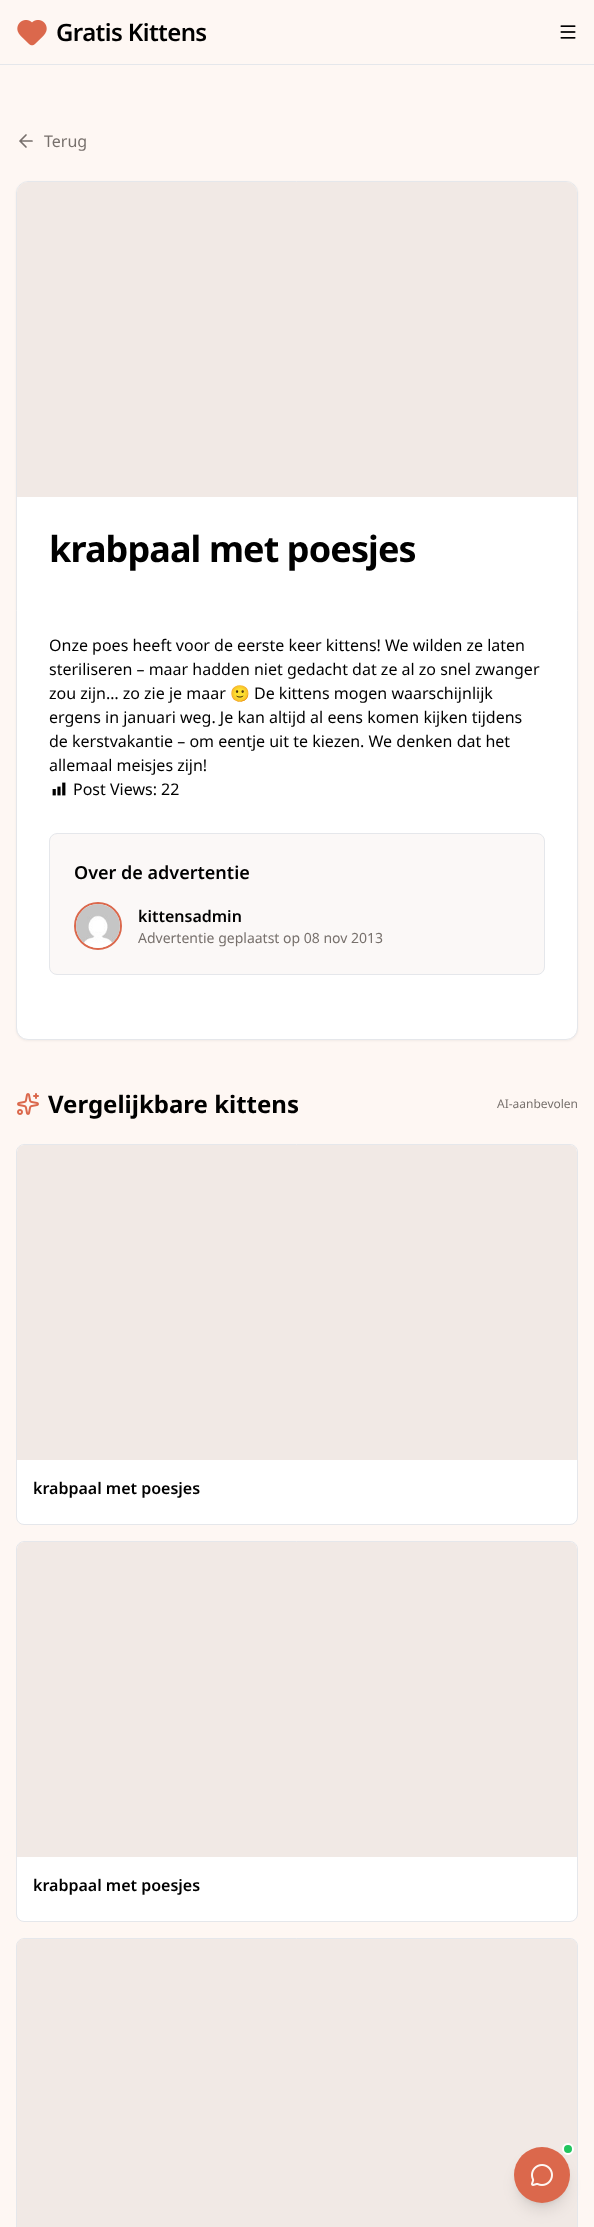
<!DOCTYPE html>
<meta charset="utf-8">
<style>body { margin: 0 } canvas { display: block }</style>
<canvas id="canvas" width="594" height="2227"></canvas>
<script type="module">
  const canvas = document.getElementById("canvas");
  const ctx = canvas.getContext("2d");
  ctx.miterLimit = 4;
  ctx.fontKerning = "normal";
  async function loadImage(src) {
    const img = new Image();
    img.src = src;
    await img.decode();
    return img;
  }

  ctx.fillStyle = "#fef7f3";
  ctx.fillRect(0, 0, 594, 2227);
  ctx.fillStyle = "#e5e7eb";
  ctx.fillRect(0, 64, 594, 1);
  ctx.drawImage(await loadImage("img1.png"), 17, 20, 30, 26);
  ctx.letterSpacing = "-0.6px";
  ctx.font = "600 24px Noto Sans";
  ctx.fillStyle = "#000000";
  ctx.fillText("Gratis Kittens", 56, 41);
  ctx.drawImage(await loadImage("img2.png"), 560, 25, 16, 14);
  ctx.beginPath();
  ctx.moveTo(26, 147);
  ctx.lineTo(20, 141);
  ctx.lineTo(26, 135);
  ctx.moveTo(32, 141);
  ctx.lineTo(20, 141);
  ctx.strokeStyle = "#77706c";
  ctx.lineWidth = 1.7;
  ctx.lineCap = "round";
  ctx.lineJoin = "round";
  ctx.stroke();
  ctx.letterSpacing = "0px";
  ctx.font = "16px Noto Sans";
  ctx.fillStyle = "#77706c";
  ctx.fillText("Terug", 44, 147);
  ctx.fillStyle = "rgba(0, 0, 0, 0.05)";
  ctx.filter = "blur(1px)";
  ctx.beginPath();
  ctx.roundRect(16, 182, 562, 859, 12);
  ctx.fill();
  ctx.filter = "none";
  ctx.fillStyle = "#ffffff";
  ctx.beginPath();
  ctx.roundRect(16.5, 181.5, 561, 858, 11.5);
  ctx.fill();
  ctx.strokeStyle = "#e5e7eb";
  ctx.lineWidth = 1;
  ctx.lineJoin = "miter";
  ctx.stroke();
  ctx.fillStyle = "#f1e9e5";
  ctx.beginPath();
  ctx.roundRect(17, 182, 560, 315, [11, 11, 0, 0]);
  ctx.fill();
  ctx.letterSpacing = "-0.9px";
  ctx.font = "bold 36px Noto Sans";
  ctx.fillStyle = "#000000";
  ctx.fillText("krabpaal met poesjes", 49, 562);
  ctx.letterSpacing = "0px";
  ctx.font = "16px Noto Sans";
  ctx.fillText("Onze poes heeft voor de eerste keer kittens! We wilden ze laten", 49, 651);
  ctx.fillText("steriliseren – maar hadden niet gedacht dat ze al zo snel zwanger", 49, 675);
  ctx.fillText("zou zijn… zo zie je maar", 49, 699);
  ctx.font = "16px Noto Color Emoji";
  ctx.fillText("🙂", 230, 699);
  ctx.font = "16px Noto Sans";
  ctx.fillText("De kittens mogen waarschijnlijk", 254, 699);
  ctx.fillText("ergens in januari weg. Je kan altijd al eens komen kijken tijdens", 49, 723);
  ctx.fillText("de kerstvakantie – om eentje uit te kiezen. We denken dat het", 49, 747);
  ctx.fillText("allemaal meisjes zijn!", 49, 771);
  ctx.drawImage(await loadImage("img3.png"), 52, 782, 14, 14);
  ctx.fillText("Post Views: 22", 73, 795);
  ctx.fillStyle = "#fbf8f7";
  ctx.beginPath();
  ctx.roundRect(49.5, 833.5, 495, 141, 7.5);
  ctx.fill();
  ctx.stroke();
  ctx.font = "600 18px Noto Sans";
  ctx.fillStyle = "#000000";
  ctx.fillText("Over de advertentie", 74, 879);
  ctx.beginPath();
  ctx.arc(98, 926, 23, 0, Math.PI * 2);
  ctx.strokeStyle = "#db684c";
  ctx.lineWidth = 2;
  ctx.stroke();
  ctx.drawImage(await loadImage("img4.png"), 76, 904, 44, 44);
  ctx.font = "600 16px Noto Sans";
  ctx.fillText("kittensadmin", 138, 922);
  ctx.font = "14px Noto Sans";
  ctx.fillStyle = "#77706c";
  ctx.fillText("Advertentie geplaatst op 08 nov 2013", 138, 943);
  ctx.drawImage(await loadImage("img5.png"), 17, 1093, 22, 22);
  ctx.font = "bold 24px Noto Sans";
  ctx.fillStyle = "#000000";
  ctx.fillText("Vergelijkbare kittens", 48, 1113);
  ctx.font = "12px Noto Sans";
  ctx.fillStyle = "#77706c";
  ctx.fillText("AI-aanbevolen", 497, 1108);
  ctx.fillStyle = "#ffffff";
  ctx.beginPath();
  ctx.roundRect(16.5, 1144.5, 561, 380, 7.5);
  ctx.fill();
  ctx.strokeStyle = "#e5e7eb";
  ctx.lineWidth = 1;
  ctx.stroke();
  ctx.fillStyle = "#f1e9e5";
  ctx.beginPath();
  ctx.roundRect(17, 1145, 560, 315, [7, 7, 0, 0]);
  ctx.fill();
  ctx.font = "600 16px Noto Sans";
  ctx.fillStyle = "#000000";
  ctx.fillText("krabpaal met poesjes", 33, 1494);
  ctx.fillStyle = "#ffffff";
  ctx.beginPath();
  ctx.roundRect(16.5, 1541.5, 561, 380, 7.5);
  ctx.fill();
  ctx.stroke();
  ctx.fillStyle = "#f1e9e5";
  ctx.beginPath();
  ctx.roundRect(17, 1542, 560, 315, [7, 7, 0, 0]);
  ctx.fill();
  ctx.fillStyle = "#000000";
  ctx.fillText("krabpaal met poesjes", 33, 1891);
  ctx.beginPath();
  ctx.roundRect(16.5, 1938.5, 561, 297, 7.5);
  ctx.stroke();
  ctx.fillStyle = "#f1e9e5";
  ctx.beginPath();
  ctx.moveTo(24, 1939);
  ctx.lineTo(570, 1939);
  ctx.bezierCurveTo(574, 1939, 577, 1942, 577, 1946);
  ctx.lineTo(577, 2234);
  ctx.lineTo(17, 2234);
  ctx.lineTo(17, 1946);
  ctx.bezierCurveTo(17, 1942, 20, 1939, 24, 1939);
  ctx.closePath();
  ctx.fill();
  ctx.fillStyle = "rgba(0, 0, 0, 0.1)";
  ctx.filter = "blur(3px)";
  ctx.beginPath();
  ctx.roundRect(518, 2155, 48, 48, 24);
  ctx.fill();
  ctx.filter = "none";
  ctx.filter = "blur(7.5px)";
  ctx.beginPath();
  ctx.roundRect(517, 2160, 50, 50, 25);
  ctx.fill();
  ctx.filter = "none";
  ctx.fillStyle = "#db684c";
  ctx.beginPath();
  ctx.arc(542, 2175, 28, 0, Math.PI * 2);
  ctx.fill();
  ctx.fillStyle = "#22c55e";
  ctx.beginPath();
  ctx.arc(568, 2149, 5, 0, Math.PI * 2);
  ctx.fill();
  ctx.strokeStyle = "#ffffff";
  ctx.lineWidth = 2;
  ctx.stroke();
  ctx.drawImage(await loadImage("img6.png"), 531, 2164, 22, 22);
</script>
